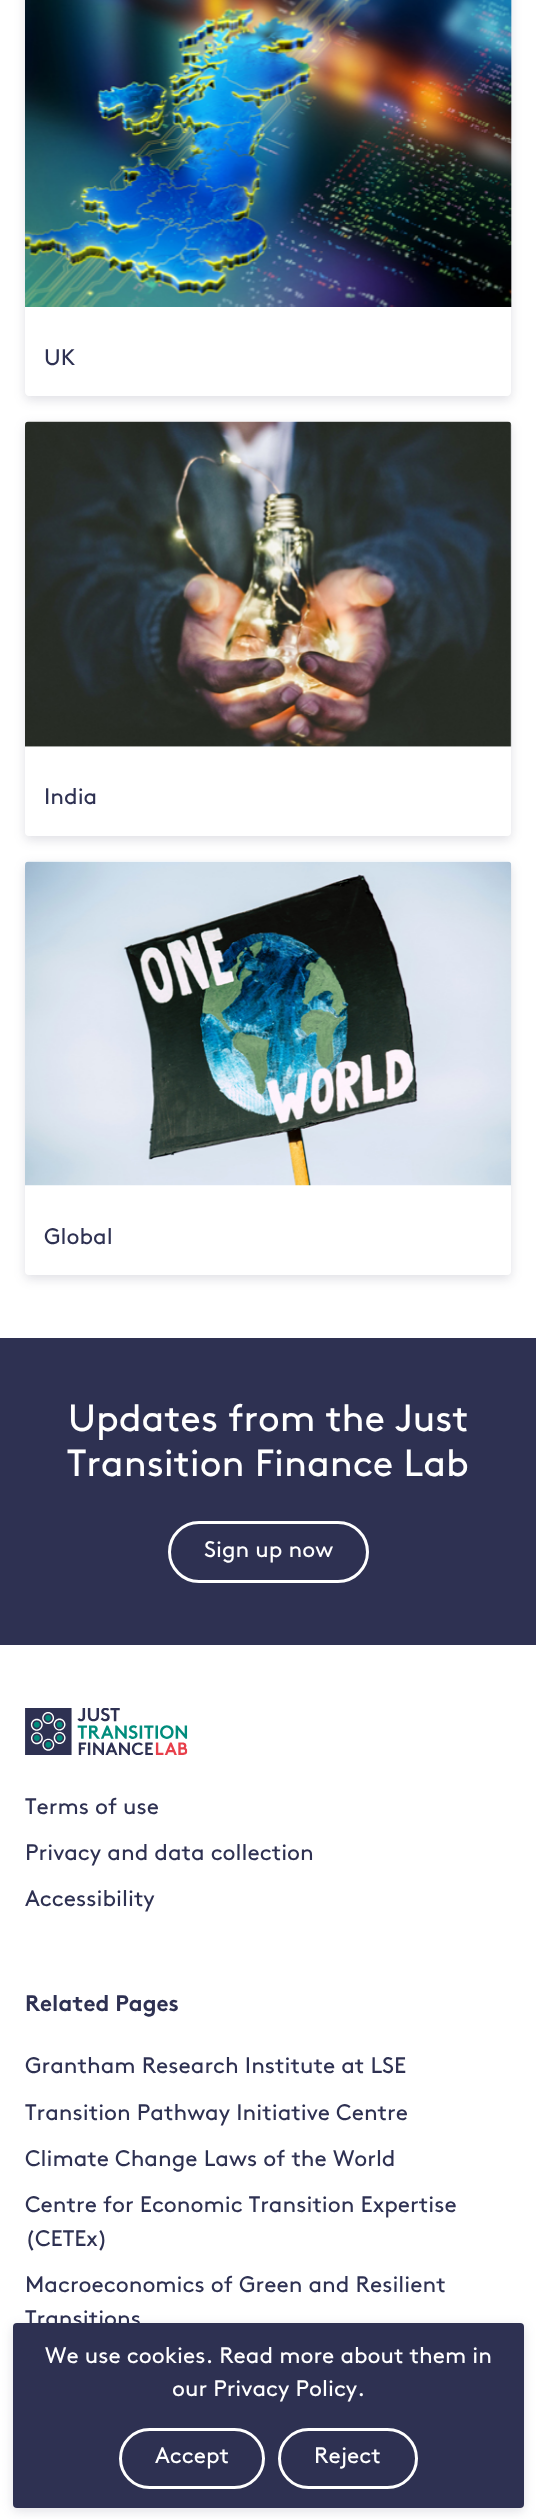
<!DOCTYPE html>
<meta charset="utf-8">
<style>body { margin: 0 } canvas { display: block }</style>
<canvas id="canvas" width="536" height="2519"></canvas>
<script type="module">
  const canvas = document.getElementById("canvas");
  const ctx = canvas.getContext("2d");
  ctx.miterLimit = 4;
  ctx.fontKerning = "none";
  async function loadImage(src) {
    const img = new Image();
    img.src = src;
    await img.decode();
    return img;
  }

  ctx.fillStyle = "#ffffff";
  ctx.fillRect(0, 0, 536, 2519);
  ctx.save();
  ctx.beginPath();
  ctx.moveTo(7, 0);
  ctx.lineTo(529, 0);
  ctx.lineTo(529, 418);
  ctx.lineTo(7, 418);
  ctx.closePath();
  ctx.moveTo(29, -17);
  ctx.lineTo(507, -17);
  ctx.bezierCurveTo(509, -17, 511, -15, 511, -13);
  ctx.lineTo(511, 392);
  ctx.bezierCurveTo(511, 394, 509, 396, 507, 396);
  ctx.lineTo(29, 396);
  ctx.bezierCurveTo(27, 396, 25, 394, 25, 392);
  ctx.lineTo(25, -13);
  ctx.bezierCurveTo(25, -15, 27, -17, 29, -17);
  ctx.closePath();
  ctx.clip("evenodd");
  ctx.fillStyle = "rgba(46, 49, 82, 0.15)";
  ctx.filter = "blur(5.5px)";
  ctx.beginPath();
  ctx.roundRect(25, -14, 486, 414, 4);
  ctx.fill();
  ctx.filter = "none";
  ctx.restore();
  ctx.drawImage(await loadImage("img1.png"), 25, 0, 487, 307);
  ctx.font = "22.5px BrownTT";
  ctx.fillStyle = "#2e3152";
  ctx.fillText("UK", 44, 365);
  ctx.fillStyle = "rgba(46, 49, 82, 0.15)";
  ctx.filter = "blur(5.5px)";
  ctx.beginPath();
  ctx.roundRect(25, 425, 486, 415, 4);
  ctx.fill();
  ctx.filter = "none";
  ctx.fillStyle = "#ffffff";
  ctx.beginPath();
  ctx.roundRect(25, 421, 486, 415, 4);
  ctx.fill();
  ctx.drawImage(await loadImage("img2.png"), 25, 421, 487, 326);
  ctx.fillStyle = "#2e3152";
  ctx.fillText("India", 44, 804);
  ctx.fillStyle = "rgba(46, 49, 82, 0.15)";
  ctx.filter = "blur(5.5px)";
  ctx.beginPath();
  ctx.roundRect(25, 865, 486, 414, 4);
  ctx.fill();
  ctx.filter = "none";
  ctx.fillStyle = "#ffffff";
  ctx.beginPath();
  ctx.roundRect(25, 861, 486, 414, 4);
  ctx.fill();
  ctx.drawImage(await loadImage("img3.png"), 25, 861, 487, 325);
  ctx.fillStyle = "#2e3152";
  ctx.fillText("Global", 44, 1244);
  ctx.fillRect(0, 1338, 536, 307);
  ctx.font = "37.75px BrownTT";
  ctx.fillStyle = "#ffffff";
  ctx.fillText("Updates from the Just", 68, 1431);
  ctx.fillText("Transition Finance Lab", 67, 1476);
  ctx.beginPath();
  ctx.roundRect(169.5, 1522.5, 198, 59, 29.5);
  ctx.strokeStyle = "#ffffff";
  ctx.lineWidth = 3;
  ctx.stroke();
  ctx.font = "22.5px BrownTT";
  ctx.fillText("Sign up now", 204, 1557);
  ctx.drawImage(await loadImage("img4.png"), 25, 1708, 163, 47);
  ctx.fillStyle = "#2e3152";
  ctx.fillText("Terms of use", 25, 1814);
  ctx.fillText("Privacy and data collection", 25, 1860);
  ctx.fillText("Accessibility", 25, 1906);
  ctx.font = "bold 22.5px BrownTT";
  ctx.fillText("Related Pages", 25, 2011);
  ctx.font = "22.5px BrownTT";
  ctx.fillText("Grantham Research Institute at LSE", 25, 2073);
  ctx.fillText("Transition Pathway Initiative Centre", 25, 2120);
  ctx.fillText("Climate Change Laws of the World", 25, 2166);
  ctx.fillText("Centre for Economic Transition Expertise", 25, 2212);
  ctx.fillText("(CETEx)", 25, 2246);
  ctx.fillText("Macroeconomics of Green and Resilient", 25, 2292);
  ctx.fillText("Transitions", 25, 2326);
  ctx.fillStyle = "rgba(46, 49, 82, 0.15)";
  ctx.filter = "blur(5.5px)";
  ctx.beginPath();
  ctx.roundRect(13, 2326, 511, 185, 4);
  ctx.fill();
  ctx.filter = "none";
  ctx.fillStyle = "#2e3152";
  ctx.beginPath();
  ctx.roundRect(13, 2323, 511, 185, 4);
  ctx.fill();
  ctx.fillStyle = "#ffffff";
  ctx.fillText("We use cookies. Read more about them in", 45, 2363);
  ctx.fillText("our Privacy Policy.", 172, 2396);
  ctx.beginPath();
  ctx.roundRect(120.5, 2429.5, 143, 58, 29);
  ctx.stroke();
  ctx.fillText("Accept", 155, 2463);
  ctx.beginPath();
  ctx.roundRect(279.5, 2429.5, 137, 58, 29);
  ctx.stroke();
  ctx.fillText("Reject", 314, 2463);
</script>
